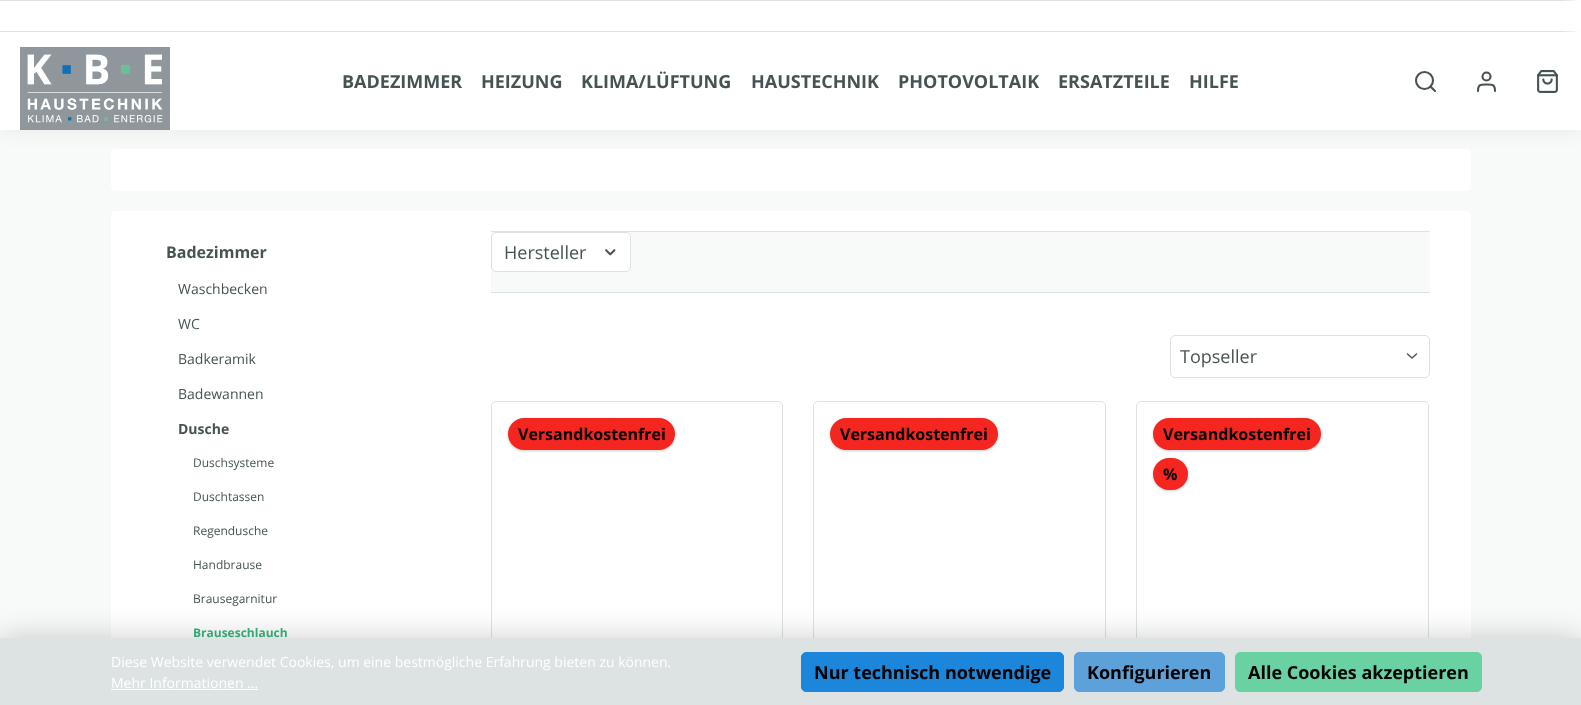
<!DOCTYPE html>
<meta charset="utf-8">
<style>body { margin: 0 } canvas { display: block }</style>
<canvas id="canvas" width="1581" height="705"></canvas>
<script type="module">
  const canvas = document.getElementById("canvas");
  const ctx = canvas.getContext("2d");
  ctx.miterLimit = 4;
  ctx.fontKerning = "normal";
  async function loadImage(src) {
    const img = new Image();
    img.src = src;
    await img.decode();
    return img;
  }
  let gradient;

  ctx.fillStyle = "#f8fafa";
  ctx.fillRect(0, 0, 1581, 705);
  ctx.fillStyle = "#ffffff";
  ctx.beginPath();
  ctx.roundRect(111, 149, 1360, 42, 5);
  ctx.fill();
  ctx.fillStyle = "rgba(0, 0, 0, 0.07)";
  ctx.filter = "blur(10px)";
  ctx.beginPath();
  ctx.rect(0, 0, 1581, 130);
  ctx.fill();
  ctx.filter = "none";
  ctx.fillStyle = "#ffffff";
  ctx.fillRect(0, 1, 1581, 129);
  ctx.fillStyle = "#dde2e2";
  ctx.fillRect(0, 0, 1581, 1);
  ctx.fillRect(0, 31, 1581, 1);
  ctx.drawImage(await loadImage("img1.png"), 20, 47, 150, 83);
  gradient = ctx.createLinearGradient(1581, 65, 1561, 65);
  gradient.addColorStop(0, "#ffffff");
  gradient.addColorStop(1, "rgba(255, 255, 255, 0)");
  ctx.fillStyle = gradient;
  ctx.fillRect(1563, 0, 18, 32);
  ctx.font = "bold 18px Open Sans";
  ctx.fillStyle = "#475353";
  ctx.fillText("BADEZIMMER", 342, 88);
  ctx.fillText("HEIZUNG", 481, 88);
  ctx.fillText("KLIMA/LÜFTUNG", 581, 88);
  ctx.fillText("HAUSTECHNIK", 751, 88);
  ctx.fillText("PHOTOVOLTAIK", 898, 88);
  ctx.fillText("ERSATZTEILE", 1058, 88);
  ctx.fillText("HILFE", 1189, 88);
  ctx.beginPath();
  ctx.arc(1424.5, 80.5, 8.5, 0, Math.PI * 2);
  ctx.strokeStyle = "#475353";
  ctx.lineWidth = 2.1;
  ctx.stroke();
  ctx.beginPath();
  ctx.moveTo(1435, 91);
  ctx.lineTo(1430.5, 86.5);
  ctx.lineCap = "round";
  ctx.lineJoin = "round";
  ctx.stroke();
  ctx.beginPath();
  ctx.arc(1486.5, 76.5, 4, 0, Math.PI * 2);
  ctx.stroke();
  ctx.beginPath();
  ctx.moveTo(1495, 91);
  ctx.bezierCurveTo(1495, 84, 1492.5, 84.5, 1486.5, 84.5);
  ctx.bezierCurveTo(1480.5, 84.5, 1478, 84, 1478, 91);
  ctx.stroke();
  ctx.drawImage(await loadImage("img2.png"), 1537, 70, 21, 23);
  ctx.fillStyle = "#ffffff";
  ctx.beginPath();
  ctx.moveTo(116, 211);
  ctx.lineTo(451, 211);
  ctx.lineTo(451, 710);
  ctx.lineTo(116, 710);
  ctx.bezierCurveTo(113, 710, 111, 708, 111, 705);
  ctx.lineTo(111, 216);
  ctx.bezierCurveTo(111, 213, 113, 211, 116, 211);
  ctx.closePath();
  ctx.fill();
  ctx.font = "bold 16px Open Sans";
  ctx.fillStyle = "#475353";
  ctx.fillText("Badezimmer", 166, 258);
  ctx.font = "14px Open Sans";
  ctx.fillText("Waschbecken", 178, 294);
  ctx.fillText("WC", 178, 329);
  ctx.fillText("Badkeramik", 178, 364);
  ctx.fillText("Badewannen", 178, 399);
  ctx.font = "bold 14px Open Sans";
  ctx.fillText("Dusche", 178, 434);
  ctx.font = "12px Open Sans";
  ctx.fillText("Duschsysteme", 193, 467);
  ctx.fillText("Duschtassen", 193, 501);
  ctx.fillText("Regendusche", 193, 535);
  ctx.fillText("Handbrause", 193, 569);
  ctx.fillText("Brausegarnitur", 193, 603);
  ctx.font = "bold 12px Open Sans";
  ctx.fillStyle = "#38b67e";
  ctx.fillText("Brauseschlauch", 193, 637);
  ctx.fillStyle = "#ffffff";
  ctx.beginPath();
  ctx.moveTo(451, 211);
  ctx.lineTo(1466, 211);
  ctx.bezierCurveTo(1469, 211, 1471, 213, 1471, 216);
  ctx.lineTo(1471, 705);
  ctx.bezierCurveTo(1471, 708, 1469, 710, 1466, 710);
  ctx.lineTo(451, 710);
  ctx.closePath();
  ctx.fill();
  ctx.fillStyle = "#f8fafa";
  ctx.fillRect(491, 232, 939, 60);
  ctx.fillStyle = "#dde2e2";
  ctx.fillRect(491, 231, 939, 1);
  ctx.fillRect(491, 292, 939, 1);
  ctx.fillStyle = "#ffffff";
  ctx.beginPath();
  ctx.roundRect(491.5, 232.5, 139, 39, 4.5);
  ctx.fill();
  ctx.strokeStyle = "#dde2e2";
  ctx.lineWidth = 1;
  ctx.lineJoin = "miter";
  ctx.stroke();
  ctx.font = "18px Open Sans";
  ctx.fillStyle = "#475353";
  ctx.fillText("Hersteller", 504, 259);
  ctx.drawImage(await loadImage("img3.png"), 605, 249, 11, 7);
  ctx.beginPath();
  ctx.moveTo(1407.5, 354);
  ctx.lineTo(1412, 358);
  ctx.lineTo(1416.5, 354);
  ctx.strokeStyle = "#4a545b";
  ctx.lineWidth = 1.5;
  ctx.lineJoin = "round";
  ctx.stroke();
  ctx.beginPath();
  ctx.roundRect(1170.5, 335.5, 259, 42, 4.5);
  ctx.strokeStyle = "#dde2e2";
  ctx.lineWidth = 1;
  ctx.lineJoin = "miter";
  ctx.stroke();
  ctx.fillText("Topseller", 1180, 363);
  ctx.beginPath();
  ctx.roundRect(491.5, 401.5, 291, 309, 4.5);
  ctx.stroke();
  ctx.fillStyle = "rgba(0, 0, 0, 0.1)";
  ctx.filter = "blur(1px)";
  ctx.beginPath();
  ctx.roundRect(508, 419, 167, 32, 16);
  ctx.fill();
  ctx.filter = "none";
  ctx.filter = "blur(1.5px)";
  ctx.beginPath();
  ctx.roundRect(508, 419, 167, 32, 16);
  ctx.fill();
  ctx.filter = "none";
  ctx.fillStyle = "#f4261f";
  ctx.beginPath();
  ctx.roundRect(508, 418, 167, 32, 16);
  ctx.fill();
  ctx.font = "bold 16px Open Sans";
  ctx.fillStyle = "#000000";
  ctx.fillText("Versandkostenfrei", 518, 440);
  ctx.beginPath();
  ctx.roundRect(813.5, 401.5, 292, 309, 4.5);
  ctx.stroke();
  ctx.fillStyle = "rgba(0, 0, 0, 0.1)";
  ctx.filter = "blur(1px)";
  ctx.beginPath();
  ctx.roundRect(830, 419, 168, 32, 16);
  ctx.fill();
  ctx.filter = "none";
  ctx.filter = "blur(1.5px)";
  ctx.beginPath();
  ctx.roundRect(830, 419, 168, 32, 16);
  ctx.fill();
  ctx.filter = "none";
  ctx.fillStyle = "#f4261f";
  ctx.beginPath();
  ctx.roundRect(830, 418, 168, 32, 16);
  ctx.fill();
  ctx.fillStyle = "#000000";
  ctx.fillText("Versandkostenfrei", 840, 440);
  ctx.beginPath();
  ctx.roundRect(1136.5, 401.5, 292, 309, 4.5);
  ctx.stroke();
  ctx.fillStyle = "rgba(0, 0, 0, 0.1)";
  ctx.filter = "blur(1px)";
  ctx.beginPath();
  ctx.roundRect(1153, 419, 168, 32, 16);
  ctx.fill();
  ctx.filter = "none";
  ctx.filter = "blur(1.5px)";
  ctx.beginPath();
  ctx.roundRect(1153, 419, 168, 32, 16);
  ctx.fill();
  ctx.filter = "none";
  ctx.fillStyle = "#f4261f";
  ctx.beginPath();
  ctx.roundRect(1153, 418, 168, 32, 16);
  ctx.fill();
  ctx.fillStyle = "#000000";
  ctx.fillText("Versandkostenfrei", 1163, 440);
  ctx.fillStyle = "rgba(0, 0, 0, 0.1)";
  ctx.filter = "blur(1px)";
  ctx.beginPath();
  ctx.roundRect(1153, 459, 35, 32, 16);
  ctx.fill();
  ctx.filter = "none";
  ctx.filter = "blur(1.5px)";
  ctx.beginPath();
  ctx.roundRect(1153, 459, 35, 32, 16);
  ctx.fill();
  ctx.filter = "none";
  ctx.fillStyle = "#f4261f";
  ctx.beginPath();
  ctx.roundRect(1153, 458, 35, 32, 16);
  ctx.fill();
  ctx.fillStyle = "#000000";
  ctx.fillText("%", 1163, 480);
  ctx.fillStyle = "rgba(0, 0, 0, 0.2)";
  ctx.filter = "blur(15px)";
  ctx.beginPath();
  ctx.rect(0, 638, 1581, 67);
  ctx.fill();
  ctx.filter = "none";
  ctx.fillStyle = "#dde2e2";
  ctx.fillRect(0, 638, 1581, 67);
  ctx.font = "14px Open Sans";
  ctx.fillStyle = "#ffffff";
  ctx.fillText("Diese Website verwendet Cookies, um eine bestmögliche Erfahrung bieten zu können.", 111, 667);
  ctx.fillText("Mehr Informationen ...", 111, 688);
  ctx.fillRect(111, 689, 147, 1);
  ctx.fillStyle = "#1c86db";
  ctx.beginPath();
  ctx.roundRect(801.5, 652.5, 262, 39, 4.5);
  ctx.fill();
  ctx.strokeStyle = "#1c86db";
  ctx.stroke();
  ctx.font = "bold 18px Open Sans";
  ctx.fillStyle = "#000000";
  ctx.fillText("Nur technisch notwendige", 814, 679);
  ctx.fillStyle = "#5ca1d9";
  ctx.beginPath();
  ctx.roundRect(1074.5, 652.5, 150, 39, 4.5);
  ctx.fill();
  ctx.strokeStyle = "#5ca1d9";
  ctx.stroke();
  ctx.fillStyle = "#000000";
  ctx.fillText("Konfigurieren", 1087, 679);
  ctx.fillStyle = "#6ad1a3";
  ctx.beginPath();
  ctx.roundRect(1235.5, 652.5, 246, 39, 4.5);
  ctx.fill();
  ctx.strokeStyle = "#6ad1a3";
  ctx.stroke();
  ctx.fillStyle = "#000000";
  ctx.fillText("Alle Cookies akzeptieren", 1248, 679);
</script>
